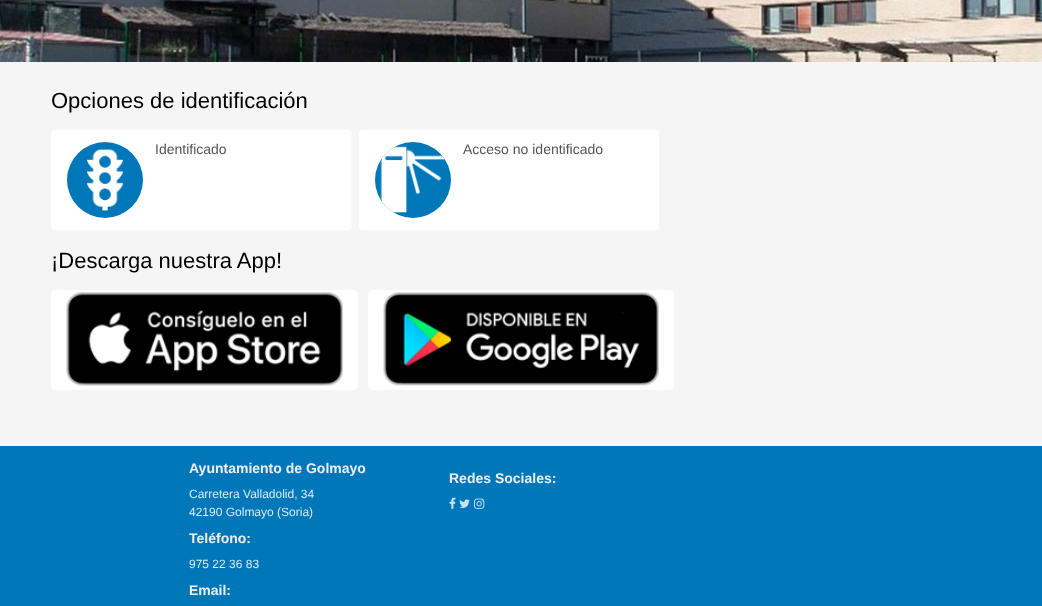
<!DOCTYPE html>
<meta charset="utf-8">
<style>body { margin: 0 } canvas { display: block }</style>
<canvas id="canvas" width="1042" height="606"></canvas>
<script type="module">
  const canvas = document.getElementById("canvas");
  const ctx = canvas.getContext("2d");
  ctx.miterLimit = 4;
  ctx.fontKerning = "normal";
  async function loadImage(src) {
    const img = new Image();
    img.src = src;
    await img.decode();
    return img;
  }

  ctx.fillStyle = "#0077b9";
  ctx.fillRect(0, 0, 1042, 606);
  ctx.fillStyle = "#f5f5f5";
  ctx.fillRect(0, 62, 1042, 384);
  ctx.drawImage(await loadImage("img1.png"), 0, 0, 1042, 62);
  ctx.font = "22px Liberation Sans";
  ctx.fillStyle = "#000000";
  ctx.fillText("Opciones de identificación", 51, 108);
  ctx.fillStyle = "#ffffff";
  ctx.beginPath();
  ctx.roundRect(51, 130, 300, 100, 4);
  ctx.fill();
  ctx.fillStyle = "#0077b9";
  ctx.beginPath();
  ctx.arc(105, 180, 38, 0, Math.PI * 2);
  ctx.fill();
  ctx.drawImage(await loadImage("img2.png"), 87, 149, 37, 62);
  ctx.font = "14px Liberation Sans";
  ctx.fillStyle = "#555555";
  ctx.fillText("Identificado", 155, 154);
  ctx.fillStyle = "#ffffff";
  ctx.beginPath();
  ctx.roundRect(359, 130, 300, 100, 4);
  ctx.fill();
  ctx.fillStyle = "#0077b9";
  ctx.beginPath();
  ctx.arc(413, 180, 38, 0, Math.PI * 2);
  ctx.fill();
  ctx.drawImage(await loadImage("img3.png"), 380, 146, 65, 67);
  ctx.fillStyle = "#555555";
  ctx.fillText("Acceso no identificado", 463, 154);
  ctx.font = "22px Liberation Sans";
  ctx.fillStyle = "#000000";
  ctx.fillText("¡Descarga nuestra App!", 51, 268);
  ctx.fillStyle = "#ffffff";
  ctx.beginPath();
  ctx.roundRect(51, 290, 307, 100, 4);
  ctx.fill();
  ctx.drawImage(await loadImage("img4.png"), 66, 292, 277, 94);
  ctx.beginPath();
  ctx.roundRect(368, 290, 306, 100, 4);
  ctx.fill();
  ctx.drawImage(await loadImage("img5.png"), 383, 292, 276, 94);
  ctx.font = "bold 14px Liberation Sans";
  ctx.fillStyle = "#eeeeee";
  ctx.fillText("Ayuntamiento de Golmayo", 189, 473);
  ctx.font = "12px Liberation Sans";
  ctx.fillStyle = "#d9ebf5";
  ctx.fillText("Carretera Valladolid, 34", 189, 498);
  ctx.fillText("42190 Golmayo (Soria)", 189, 516);
  ctx.font = "bold 14px Liberation Sans";
  ctx.fillStyle = "#eeeeee";
  ctx.fillText("Teléfono:", 189, 543);
  ctx.font = "12px Liberation Sans";
  ctx.fillStyle = "#d9ebf5";
  ctx.fillText("975 22 36 83", 189, 568);
  ctx.font = "bold 14px Liberation Sans";
  ctx.fillStyle = "#eeeeee";
  ctx.fillText("Email:", 189, 595);
  ctx.fillText("Redes Sociales:", 449, 483);
  ctx.drawImage(await loadImage("img6.png"), 449, 497, 7, 12);
  ctx.drawImage(await loadImage("img7.png"), 459, 499, 11, 9);
  ctx.drawImage(await loadImage("img8.png"), 474, 498, 11, 11);
</script>
